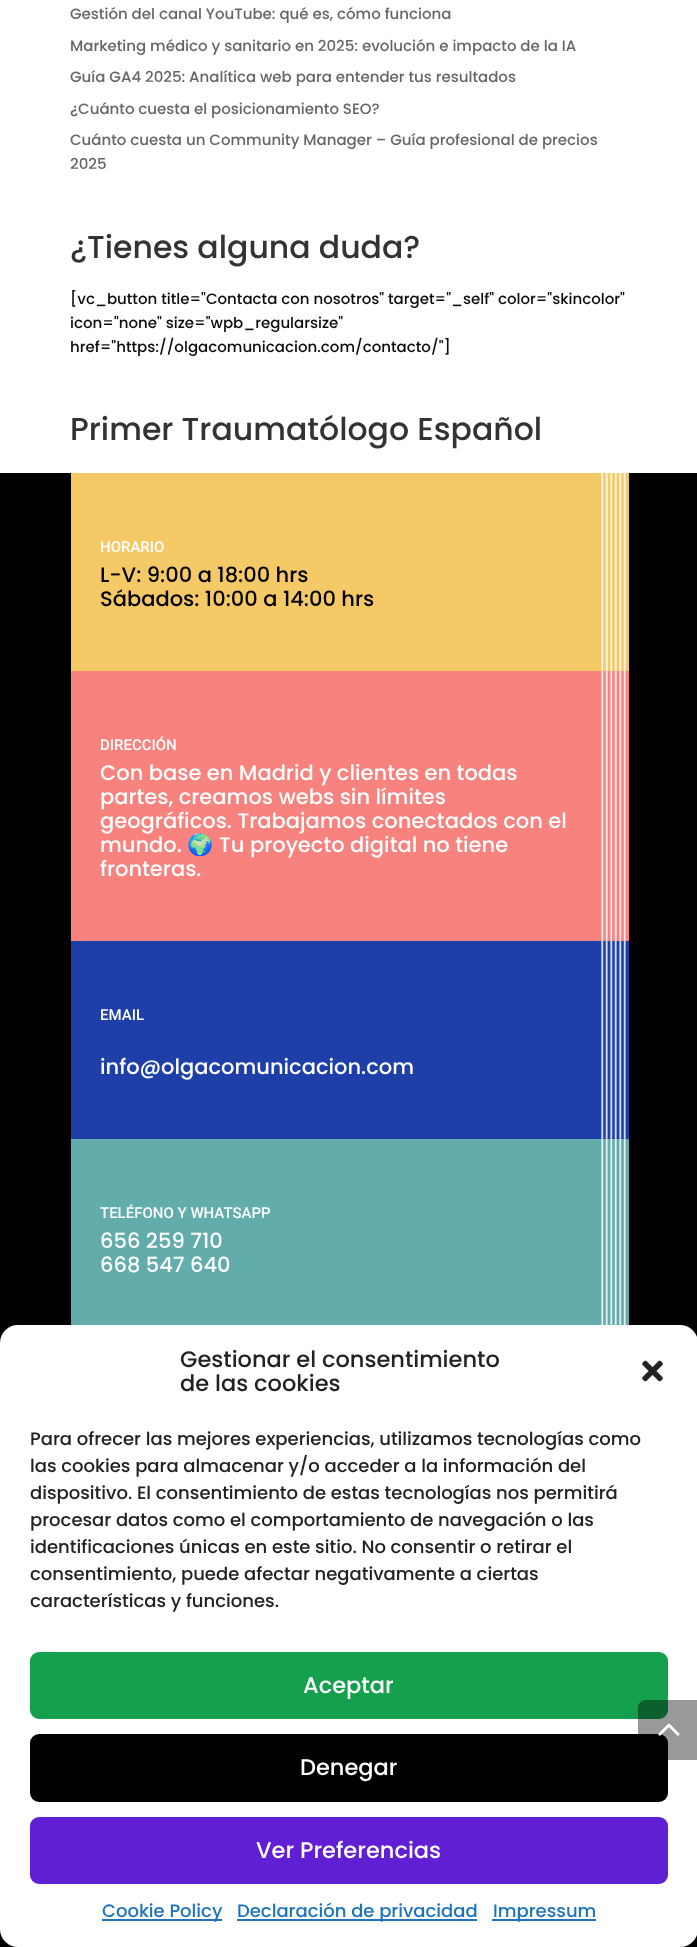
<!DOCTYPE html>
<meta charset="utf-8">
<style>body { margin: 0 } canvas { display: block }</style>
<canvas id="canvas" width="697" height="1947"></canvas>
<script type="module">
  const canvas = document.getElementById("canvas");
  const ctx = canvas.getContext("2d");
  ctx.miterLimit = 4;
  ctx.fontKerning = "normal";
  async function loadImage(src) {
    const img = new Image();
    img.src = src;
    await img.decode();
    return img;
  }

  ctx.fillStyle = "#ffffff";
  ctx.fillRect(0, 0, 697, 1947);
  ctx.font = "500 15px Poppins";
  ctx.fillStyle = "#666666";
  ctx.fillText("Gestión del canal YouTube: qué es, cómo funciona", 70, 19);
  ctx.fillText("Marketing médico y sanitario en 2025: evolución e impacto de la IA", 70, 51);
  ctx.fillText("Guía GA4 2025: Analítica web para entender tus resultados", 70, 82);
  ctx.fillText("¿Cuánto cuesta el posicionamiento SEO?", 70, 114);
  ctx.fillText("Cuánto cuesta un Community Manager – Guía profesional de precios", 70, 145);
  ctx.fillText("2025", 70, 169);
  ctx.font = "500 31.5px Poppins";
  ctx.fillStyle = "#333333";
  ctx.fillText("¿Tienes alguna duda?", 70, 258);
  ctx.font = "500 15px Poppins";
  ctx.fillStyle = "#0c0c0c";
  ctx.fillText("[vc_button title=\"Contacta con nosotros\" target=\"_self\" color=\"skincolor\"", 70, 304);
  ctx.fillText("icon=\"none\" size=\"wpb_regularsize\"", 70, 328);
  ctx.fillText("href=\"https://olgacomunicacion.com/contacto/\"]", 70, 352);
  ctx.font = "500 31.5px Poppins";
  ctx.fillStyle = "#333333";
  ctx.fillText("Primer Traumatólogo Español", 70, 440);
  ctx.fillStyle = "#000000";
  ctx.fillRect(0, 473, 697, 1474);
  ctx.fillStyle = "#f5c966";
  ctx.fillRect(71, 473, 558, 198);
  ctx.drawImage(await loadImage("img1.png"), 601, 473, 25, 198);
  ctx.font = "500 15px Roboto";
  ctx.fillStyle = "#ffffff";
  ctx.fillText("HORARIO", 100, 552);
  ctx.font = "500 21px Poppins";
  ctx.fillStyle = "#000000";
  ctx.fillText("L-V: 9:00 a 18:00 hrs", 100, 582);
  ctx.fillText("Sábados: 10:00 a 14:00 hrs", 100, 606);
  ctx.fillStyle = "#f7827e";
  ctx.fillRect(71, 671, 558, 270);
  ctx.drawImage(await loadImage("img2.png"), 601, 670, 25, 271);
  ctx.font = "500 15px Roboto";
  ctx.fillStyle = "#ffffff";
  ctx.fillText("DIRECCIÓN", 100, 750);
  ctx.font = "500 21px Poppins";
  ctx.fillText("Con base en Madrid y clientes en todas", 100, 780);
  ctx.fillText("partes, creamos webs sin límites", 100, 804);
  ctx.fillText("geográficos. Trabajamos conectados con el", 100, 828);
  ctx.fillText("mundo.", 100, 852);
  ctx.font = "21px Noto Color Emoji";
  ctx.fillText("🌍", 187, 852);
  ctx.font = "500 21px Poppins";
  ctx.fillText("Tu proyecto digital no tiene", 219, 852);
  ctx.fillText("fronteras.", 100, 876);
  ctx.fillStyle = "#1f3fa8";
  ctx.fillRect(71, 941, 558, 198);
  ctx.drawImage(await loadImage("img3.png"), 601, 940, 25, 199);
  ctx.font = "500 15px Roboto";
  ctx.fillStyle = "#ffffff";
  ctx.fillText("EMAIL", 100, 1020);
  ctx.font = "500 21px Poppins";
  ctx.fillText("info@olgacomunicacion.com", 100, 1074);
  ctx.fillStyle = "#62acac";
  ctx.fillRect(71, 1139, 558, 186);
  ctx.drawImage(await loadImage("img4.png"), 601, 1138, 25, 187);
  ctx.font = "500 15px Roboto";
  ctx.fillStyle = "#ffffff";
  ctx.fillText("TELÉFONO Y WHATSAPP", 100, 1218);
  ctx.font = "500 21px Poppins";
  ctx.fillText("656 259 710", 100, 1248);
  ctx.fillText("668 547 640", 100, 1272);
  ctx.beginPath();
  ctx.roundRect(0, 1325, 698, 622, 18);
  ctx.fill();
  ctx.font = "500 22.5px Poppins";
  ctx.fillStyle = "#222222";
  ctx.fillText("Gestionar el consentimiento", 180, 1367);
  ctx.fillText("de las cookies", 180, 1391);
  ctx.drawImage(await loadImage("img5.png"), 642, 1360, 21, 22);
  ctx.font = "500 18px Poppins";
  ctx.fillText("Para ofrecer las mejores experiencias, utilizamos tecnologías como", 30, 1445);
  ctx.fillText("las cookies para almacenar y/o acceder a la información del", 30, 1472);
  ctx.fillText("dispositivo. El consentimiento de estas tecnologías nos permitirá", 30, 1499);
  ctx.fillText("procesar datos como el comportamiento de navegación o las", 30, 1526);
  ctx.fillText("identificaciones únicas en este sitio. No consentir o retirar el", 30, 1553);
  ctx.fillText("consentimiento, puede afectar negativamente a ciertas", 30, 1580);
  ctx.fillText("características y funciones.", 30, 1607);
  ctx.fillStyle = "#14a04c";
  ctx.beginPath();
  ctx.roundRect(31, 1653, 636, 65, 8);
  ctx.fill();
  ctx.strokeStyle = "#14a04c";
  ctx.lineWidth = 2;
  ctx.stroke();
  ctx.font = "500 22.5px Poppins";
  ctx.fillStyle = "#ffffff";
  ctx.fillText("Aceptar", 303, 1693);
  ctx.fillStyle = "#000000";
  ctx.beginPath();
  ctx.roundRect(31, 1735, 636, 66, 8);
  ctx.fill();
  ctx.strokeStyle = "#000000";
  ctx.stroke();
  ctx.fillStyle = "#ffffff";
  ctx.fillText("Denegar", 300, 1775);
  ctx.fillStyle = "#611fd3";
  ctx.beginPath();
  ctx.roundRect(31, 1818, 636, 65, 8);
  ctx.fill();
  ctx.strokeStyle = "#611fd3";
  ctx.stroke();
  ctx.fillStyle = "#ffffff";
  ctx.fillText("Ver Preferencias", 256, 1858);
  ctx.fillStyle = "#1e73be";
  ctx.fillRect(102, 1919, 120, 2);
  ctx.font = "500 18px Poppins";
  ctx.fillText("Cookie Policy", 102, 1917);
  ctx.fillRect(237, 1919, 240, 2);
  ctx.fillText("Declaración de privacidad", 237, 1917);
  ctx.fillRect(492, 1919, 104, 2);
  ctx.fillText("Impressum", 493, 1917);
  ctx.fillStyle = "rgba(0, 0, 0, 0.4)";
  ctx.beginPath();
  ctx.moveTo(646, 1700);
  ctx.lineTo(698, 1700);
  ctx.lineTo(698, 1760);
  ctx.lineTo(646, 1760);
  ctx.bezierCurveTo(641.5, 1760, 638, 1756.5, 638, 1752);
  ctx.lineTo(638, 1708);
  ctx.bezierCurveTo(638, 1703.5, 641.5, 1700, 646, 1700);
  ctx.closePath();
  ctx.fill();
  ctx.drawImage(await loadImage("img6.png"), 658, 1723, 22, 13);
</script>
